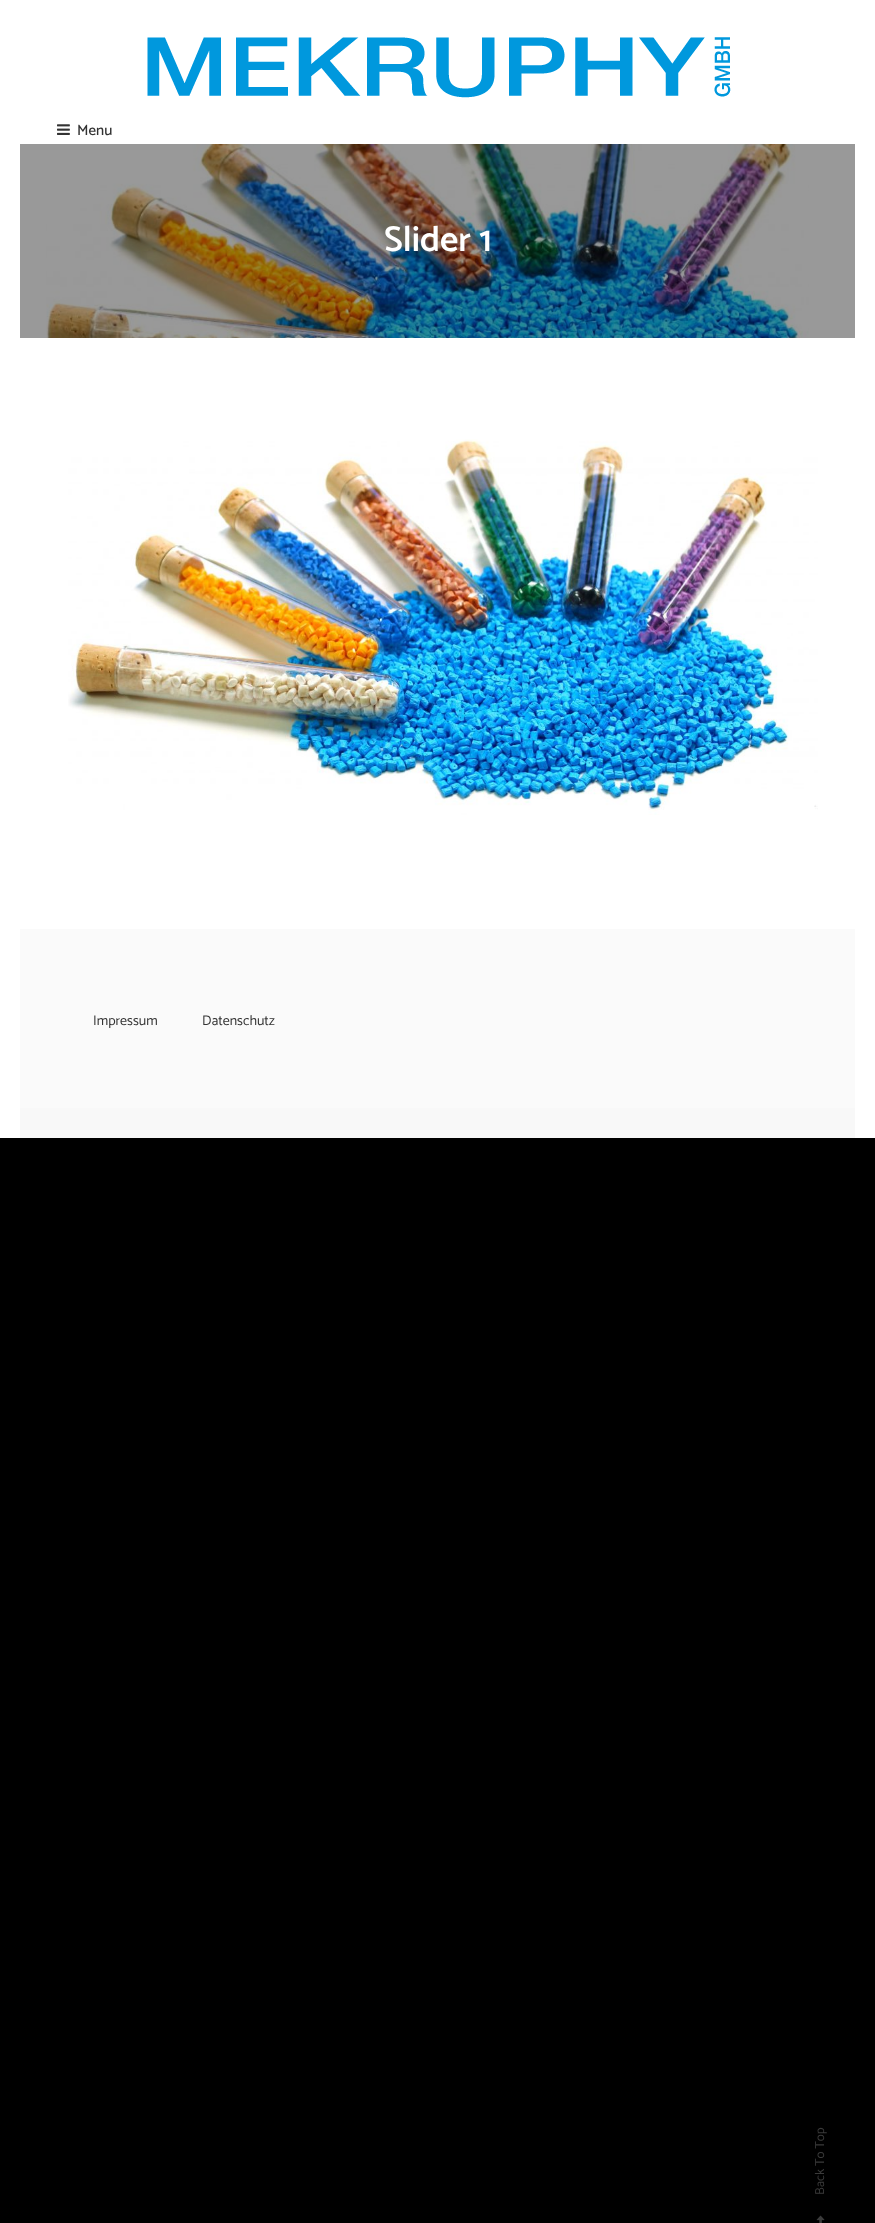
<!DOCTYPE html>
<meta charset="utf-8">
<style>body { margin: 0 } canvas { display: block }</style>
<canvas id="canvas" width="875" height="2223"></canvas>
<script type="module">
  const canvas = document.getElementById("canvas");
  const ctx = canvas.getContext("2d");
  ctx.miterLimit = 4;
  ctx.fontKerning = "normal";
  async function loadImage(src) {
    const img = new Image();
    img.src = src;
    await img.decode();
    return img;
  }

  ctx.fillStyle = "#000000";
  ctx.fillRect(0, 0, 875, 2223);
  ctx.fillStyle = "#ffffff";
  ctx.fillRect(0, 0, 875, 1138);
  ctx.fillStyle = "#999999";
  ctx.fillRect(20, 144, 835, 194);
  ctx.drawImage(await loadImage("img1.png"), 147, 37, 584, 61);
  ctx.drawImage(await loadImage("img2.png"), 57, 124, 13, 11);
  ctx.font = "500 15px Catamaran";
  ctx.fillStyle = "#333333";
  ctx.fillText("Menu", 77, 135);
  ctx.drawImage(await loadImage("img3.png"), 46, 144, 763, 194);
  ctx.font = "600 36px Catamaran";
  ctx.fillStyle = "#ffffff";
  ctx.fillText("Slider 1", 384, 251);
  ctx.drawImage(await loadImage("img4.png"), 68, 439, 750, 376);
  ctx.fillStyle = "#fafafa";
  ctx.fillRect(20, 929, 835, 179);
  ctx.font = "14px Catamaran";
  ctx.fillStyle = "#333333";
  ctx.fillText("Impressum", 93, 1025);
  ctx.fillText("Datenschutz", 202, 1025);
  ctx.fillStyle = "#f8f8f8";
  ctx.fillRect(20, 1108, 835, 30);
  ctx.font = "13px Catamaran";
  ctx.fillStyle = "#3b3b3b";
  ctx.save();
  ctx.translate(824, 2195);
  ctx.rotate(-90 * Math.PI / 180);
  ctx.fillText("Back To Top", 0, 0);
  ctx.restore();
  ctx.drawImage(await loadImage("img5.png"), 816, 2215, 9, 8);
</script>
